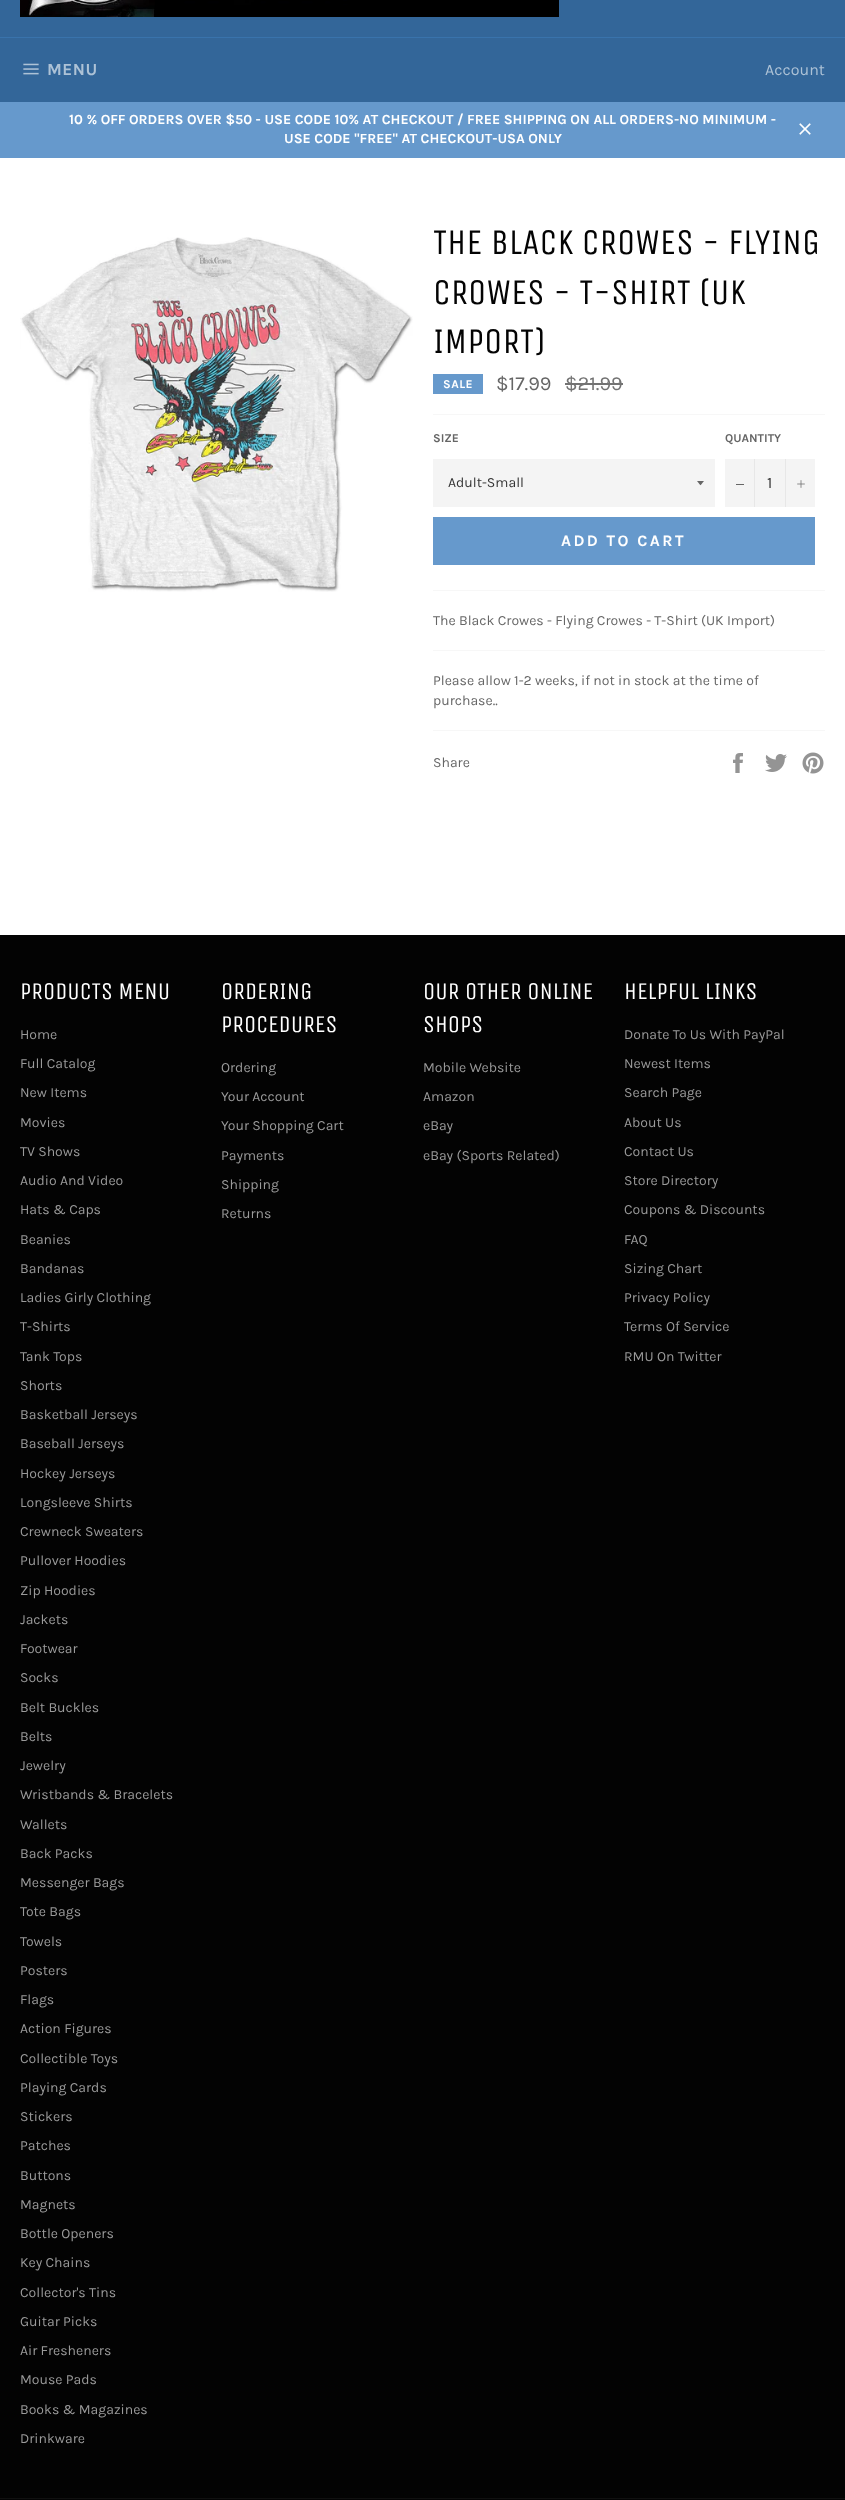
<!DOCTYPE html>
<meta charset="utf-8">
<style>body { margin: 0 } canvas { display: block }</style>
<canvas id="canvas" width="845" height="2500"></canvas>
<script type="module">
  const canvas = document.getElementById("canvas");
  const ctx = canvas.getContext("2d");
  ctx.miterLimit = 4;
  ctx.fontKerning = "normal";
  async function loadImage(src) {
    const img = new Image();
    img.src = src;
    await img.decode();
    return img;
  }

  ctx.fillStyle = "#336699";
  ctx.fillRect(0, 0, 845, 2500);
  ctx.drawImage(await loadImage("img1.png"), 20, 0, 539, 17);
  ctx.fillStyle = "#3973ac";
  ctx.fillRect(0, 37, 845, 1);
  ctx.drawImage(await loadImage("img2.png"), 23, 63, 16, 12);
  ctx.letterSpacing = "0.5px";
  ctx.font = "bold 17px Karla";
  ctx.fillStyle = "#adc2d6";
  ctx.fillText("MENU", 47, 75);
  ctx.letterSpacing = "0px";
  ctx.font = "16px Karla";
  ctx.fillText("Account", 765, 75);
  ctx.fillStyle = "#6699cc";
  ctx.fillRect(0, 102, 845, 56);
  ctx.font = "bold 14px Karla";
  ctx.fillStyle = "#ffffff";
  ctx.fillText("10 % OFF ORDERS OVER $50 - USE CODE 10% AT CHECKOUT / FREE SHIPPING ON ALL ORDERS-NO MINIMUM -", 69, 124);
  ctx.fillText("USE CODE \"FREE\" AT CHECKOUT-USA ONLY", 284, 143);
  ctx.drawImage(await loadImage("img3.png"), 799, 123, 12, 12);
  ctx.fillRect(0, 158, 845, 777);
  ctx.drawImage(await loadImage("img4.png"), 20, 237, 393, 355);
  ctx.font = "36px Unica One";
  ctx.fillStyle = "#030303";
  ctx.fillText("THE BLACK CROWES - FLYING", 433, 254);
  ctx.fillText("CROWES - T-SHIRT (UK", 433, 304);
  ctx.fillText("IMPORT)", 433, 353);
  ctx.fillStyle = "#6699cc";
  ctx.fillRect(433, 374, 50, 20);
  ctx.letterSpacing = "0.5px";
  ctx.font = "bold 12px Karla";
  ctx.fillStyle = "#ffffff";
  ctx.fillText("SALE", 443, 388);
  ctx.letterSpacing = "0px";
  ctx.font = "20px Karla";
  ctx.fillStyle = "#666666";
  ctx.fillText("$17.99", 496, 390);
  ctx.fillStyle = "#737373";
  ctx.fillText("$21.99", 565, 390);
  ctx.fillRect(565, 383, 58, 2);
  ctx.fillStyle = "#f7f7f7";
  ctx.fillRect(433, 414, 392, 1);
  ctx.font = "bold 12px Karla";
  ctx.fillStyle = "#666666";
  ctx.fillText("SIZE", 433, 442);
  ctx.fillStyle = "#f4f4f4";
  ctx.fillRect(433, 459, 282, 48);
  ctx.fillStyle = "#666666";
  ctx.beginPath();
  ctx.moveTo(697, 481);
  ctx.bezierCurveTo(701.5, 486.5, 699.5, 486.5, 704, 481);
  ctx.closePath();
  ctx.fill();
  ctx.font = "14px Karla";
  ctx.fillStyle = "#333333";
  ctx.fillText("Adult-Small", 448, 487);
  ctx.font = "bold 12px Karla";
  ctx.fillStyle = "#666666";
  ctx.fillText("QUANTITY", 725, 442);
  ctx.fillStyle = "#f4f4f4";
  ctx.fillRect(725, 459, 90, 48);
  ctx.fillStyle = "#e7e7e7";
  ctx.fillRect(754, 459, 1, 48);
  ctx.fillStyle = "#666666";
  ctx.fillRect(736, 484, 8, 1);
  ctx.font = "16px Karla";
  ctx.fillStyle = "#333333";
  ctx.fillText("1", 767, 488);
  ctx.fillStyle = "#e7e7e7";
  ctx.fillRect(785, 459, 1, 48);
  ctx.drawImage(await loadImage("img5.png"), 797, 480, 8, 8);
  ctx.fillStyle = "#6699cc";
  ctx.fillRect(433, 517, 382, 48);
  ctx.letterSpacing = "2.4px";
  ctx.font = "bold 16px Karla";
  ctx.fillStyle = "#ffffff";
  ctx.fillText("ADD TO CART", 561, 546);
  ctx.fillStyle = "#f7f7f7";
  ctx.fillRect(433, 590, 392, 1);
  ctx.letterSpacing = "0px";
  ctx.font = "14px Karla";
  ctx.fillStyle = "#666666";
  ctx.fillText("The Black Crowes - Flying Crowes - T-Shirt (UK Import)", 433, 625);
  ctx.fillStyle = "#f7f7f7";
  ctx.fillRect(433, 650, 392, 1);
  ctx.fillStyle = "#666666";
  ctx.fillText("Please allow 1-2 weeks, if not in stock at the time of", 433, 685);
  ctx.fillText("purchase..", 433, 705);
  ctx.fillStyle = "#f7f7f7";
  ctx.fillRect(433, 730, 392, 1);
  ctx.fillStyle = "#666666";
  ctx.fillText("Share", 433, 767);
  ctx.drawImage(await loadImage("img6.png"), 733, 753, 10, 20);
  ctx.drawImage(await loadImage("img7.png"), 765, 754, 22, 18);
  ctx.drawImage(await loadImage("img8.png"), 802, 752, 22, 22);
  ctx.fillStyle = "#030303";
  ctx.fillRect(0, 935, 845, 1565);
  ctx.font = "24px Unica One";
  ctx.fillStyle = "#ffffff";
  ctx.fillText("PRODUCTS MENU", 20, 999);
  ctx.font = "14px Karla";
  ctx.fillStyle = "#9a9a9a";
  ctx.fillText("Home", 20, 1039);
  ctx.fillText("Full Catalog", 20, 1068);
  ctx.fillText("New Items", 20, 1097);
  ctx.fillText("Movies", 20, 1127);
  ctx.fillText("TV Shows", 20, 1156);
  ctx.fillText("Audio And Video", 20, 1185);
  ctx.fillText("Hats & Caps", 20, 1214);
  ctx.fillText("Beanies", 20, 1244);
  ctx.fillText("Bandanas", 20, 1273);
  ctx.fillText("Ladies Girly Clothing", 20, 1302);
  ctx.fillText("T-Shirts", 20, 1331);
  ctx.fillText("Tank Tops", 20, 1361);
  ctx.fillText("Shorts", 20, 1390);
  ctx.fillText("Basketball Jerseys", 20, 1419);
  ctx.fillText("Baseball Jerseys", 20, 1448);
  ctx.fillText("Hockey Jerseys", 20, 1478);
  ctx.fillText("Longsleeve Shirts", 20, 1507);
  ctx.fillText("Crewneck Sweaters", 20, 1536);
  ctx.fillText("Pullover Hoodies", 20, 1565);
  ctx.fillText("Zip Hoodies", 20, 1595);
  ctx.fillText("Jackets", 20, 1624);
  ctx.fillText("Footwear", 20, 1653);
  ctx.fillText("Socks", 20, 1682);
  ctx.fillText("Belt Buckles", 20, 1712);
  ctx.fillText("Belts", 20, 1741);
  ctx.fillText("Jewelry", 20, 1770);
  ctx.fillText("Wristbands & Bracelets", 20, 1799);
  ctx.fillText("Wallets", 20, 1829);
  ctx.fillText("Back Packs", 20, 1858);
  ctx.fillText("Messenger Bags", 20, 1887);
  ctx.fillText("Tote Bags", 20, 1916);
  ctx.fillText("Towels", 20, 1946);
  ctx.fillText("Posters", 20, 1975);
  ctx.fillText("Flags", 20, 2004);
  ctx.fillText("Action Figures", 20, 2033);
  ctx.fillText("Collectible Toys", 20, 2063);
  ctx.fillText("Playing Cards", 20, 2092);
  ctx.fillText("Stickers", 20, 2121);
  ctx.fillText("Patches", 20, 2150);
  ctx.fillText("Buttons", 20, 2180);
  ctx.fillText("Magnets", 20, 2209);
  ctx.fillText("Bottle Openers", 20, 2238);
  ctx.fillText("Key Chains", 20, 2267);
  ctx.fillText("Collector's Tins", 20, 2297);
  ctx.fillText("Guitar Picks", 20, 2326);
  ctx.fillText("Air Fresheners", 20, 2355);
  ctx.fillText("Mouse Pads", 20, 2384);
  ctx.fillText("Books & Magazines", 20, 2414);
  ctx.fillText("Drinkware", 20, 2443);
  ctx.font = "24px Unica One";
  ctx.fillStyle = "#ffffff";
  ctx.fillText("ORDERING", 221, 999);
  ctx.fillText("PROCEDURES", 221, 1032);
  ctx.font = "14px Karla";
  ctx.fillStyle = "#9a9a9a";
  ctx.fillText("Ordering", 221, 1072);
  ctx.fillText("Your Account", 221, 1101);
  ctx.fillText("Your Shopping Cart", 221, 1130);
  ctx.fillText("Payments", 221, 1160);
  ctx.fillText("Shipping", 221, 1189);
  ctx.fillText("Returns", 221, 1218);
  ctx.font = "24px Unica One";
  ctx.fillStyle = "#ffffff";
  ctx.fillText("OUR OTHER ONLINE", 423, 999);
  ctx.fillText("SHOPS", 423, 1032);
  ctx.font = "14px Karla";
  ctx.fillStyle = "#9a9a9a";
  ctx.fillText("Mobile Website", 423, 1072);
  ctx.fillText("Amazon", 423, 1101);
  ctx.fillText("eBay", 423, 1130);
  ctx.fillText("eBay (Sports Related)", 423, 1160);
  ctx.font = "24px Unica One";
  ctx.fillStyle = "#ffffff";
  ctx.fillText("HELPFUL LINKS", 624, 999);
  ctx.font = "14px Karla";
  ctx.fillStyle = "#9a9a9a";
  ctx.fillText("Donate To Us With PayPal", 624, 1039);
  ctx.fillText("Newest Items", 624, 1068);
  ctx.fillText("Search Page", 624, 1097);
  ctx.fillText("About Us", 624, 1127);
  ctx.fillText("Contact Us", 624, 1156);
  ctx.fillText("Store Directory", 624, 1185);
  ctx.fillText("Coupons & Discounts", 624, 1214);
  ctx.fillText("FAQ", 624, 1244);
  ctx.fillText("Sizing Chart", 624, 1273);
  ctx.fillText("Privacy Policy", 624, 1302);
  ctx.fillText("Terms Of Service", 624, 1331);
  ctx.fillText("RMU On Twitter", 624, 1361);
  ctx.fillStyle = "#101010";
  ctx.fillRect(0, 2498, 845, 1);
</script>
